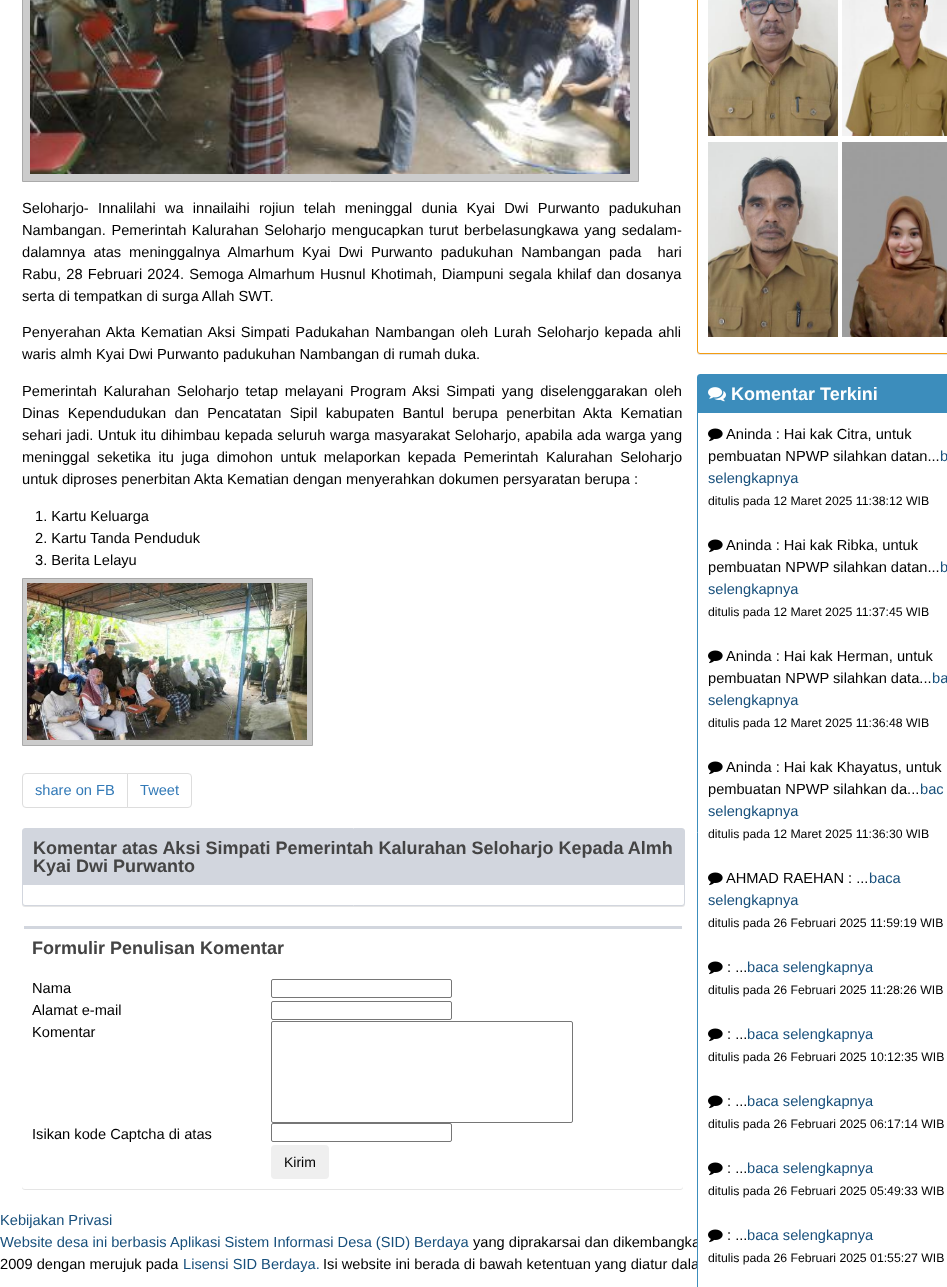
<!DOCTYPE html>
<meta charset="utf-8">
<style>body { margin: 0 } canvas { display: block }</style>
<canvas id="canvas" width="947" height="1287"></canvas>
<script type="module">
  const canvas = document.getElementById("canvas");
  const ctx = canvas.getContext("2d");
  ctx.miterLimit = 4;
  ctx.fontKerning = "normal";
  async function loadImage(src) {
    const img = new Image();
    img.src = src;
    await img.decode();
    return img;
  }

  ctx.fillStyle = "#ffffff";
  ctx.fillRect(0, 0, 947, 1287);
  ctx.fillStyle = "#cccccc";
  ctx.beginPath();
  ctx.rect(22.5, -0.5, 616, 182);
  ctx.fill();
  ctx.strokeStyle = "#aaaaaa";
  ctx.stroke();
  ctx.drawImage(await loadImage("img1.png"), 30, 0, 600, 174);
  ctx.wordSpacing = "5.1px";
  ctx.font = "14.65px Liberation Sans";
  ctx.fillStyle = "#000000";
  ctx.fillText("Seloharjo- Innalilahi wa innailaihi rojiun telah meninggal dunia Kyai Dwi Purwanto padukuhan", 22, 213);
  ctx.wordSpacing = "1.5px";
  ctx.fillText("Nambangan. Pemerintah Kalurahan Seloharjo mengucapkan turut berbelasungkawa yang sedalam-", 22, 235);
  ctx.wordSpacing = "3.9px";
  ctx.fillText("dalamnya atas meninggalnya Almarhum Kyai Dwi Purwanto padukuhan Nambangan pada  hari", 22, 257);
  ctx.wordSpacing = "1.1px";
  ctx.fillText("Rabu, 28 Februari 2024. Semoga Almarhum Husnul Khotimah, Diampuni segala khilaf dan dosanya", 22, 279);
  ctx.wordSpacing = "0px";
  ctx.fillText("serta di tempatkan di surga Allah SWT.", 22, 301);
  ctx.wordSpacing = "1.6px";
  ctx.fillText("Penyerahan Akta Kematian Aksi Simpati Padukahan Nambangan oleh Lurah Seloharjo kepada ahli", 22, 337);
  ctx.wordSpacing = "0px";
  ctx.fillText("waris almh Kyai Dwi Purwanto padukuhan Nambangan di rumah duka.", 22, 359);
  ctx.wordSpacing = "2.6px";
  ctx.fillText("Pemerintah Kalurahan Seloharjo tetap melayani Program Aksi Simpati yang diselenggarakan oleh", 22, 396);
  ctx.wordSpacing = "4.25px";
  ctx.fillText("Dinas Kependudukan dan Pencatatan Sipil kabupaten Bantul berupa penerbitan Akta Kematian", 22, 418);
  ctx.wordSpacing = "0.5px";
  ctx.fillText("sehari jadi. Untuk itu dihimbau kepada seluruh warga masyarakat Seloharjo, apabila ada warga yang", 22, 440);
  ctx.wordSpacing = "3.5px";
  ctx.fillText("meninggal seketika itu juga dimohon untuk melaporkan kepada Pemerintah Kalurahan Seloharjo", 22, 462);
  ctx.wordSpacing = "0px";
  ctx.fillText("untuk diproses penerbitan Akta Kematian dengan menyerahkan dokumen persyaratan berupa :", 22, 484);
  ctx.fillText("1. Kartu Keluarga", 35, 521);
  ctx.fillText("2. Kartu Tanda Penduduk", 35, 543);
  ctx.fillText("3. Berita Lelayu", 35, 565);
  ctx.fillStyle = "#cccccc";
  ctx.beginPath();
  ctx.rect(22.5, 578.5, 290, 167);
  ctx.fill();
  ctx.stroke();
  ctx.drawImage(await loadImage("img2.png"), 27, 583, 280, 157);
  ctx.beginPath();
  ctx.roundRect(22.5, 773.5, 105, 34, [3.5, 0, 0, 3.5]);
  ctx.strokeStyle = "#dddddd";
  ctx.stroke();
  ctx.fillStyle = "#337ab7";
  ctx.fillText("share on FB", 35, 795);
  ctx.fillStyle = "#ffffff";
  ctx.beginPath();
  ctx.roundRect(127.5, 773.5, 64, 34, [0, 3.5, 3.5, 0]);
  ctx.fill();
  ctx.stroke();
  ctx.fillStyle = "#337ab7";
  ctx.fillText("Tweet", 140, 795);
  ctx.fillStyle = "rgba(0, 0, 0, 0.1)";
  ctx.filter = "blur(0.5px)";
  ctx.beginPath();
  ctx.roundRect(22, 829, 663, 78, 3);
  ctx.fill();
  ctx.filter = "none";
  ctx.fillStyle = "#ffffff";
  ctx.beginPath();
  ctx.roundRect(22.5, 828.5, 662, 77, 2.5);
  ctx.fill();
  ctx.strokeStyle = "#d2d6de";
  ctx.stroke();
  ctx.fillStyle = "#d2d6de";
  ctx.fillRect(23, 829, 661, 56);
  ctx.font = "bold 18px Liberation Sans";
  ctx.fillStyle = "#444444";
  ctx.fillText("Komentar atas Aksi Simpati Pemerintah Kalurahan Seloharjo Kepada Almh", 33, 854);
  ctx.fillText("Kyai Dwi Purwanto", 33, 872);
  ctx.fillStyle = "rgba(0, 0, 0, 0.1)";
  ctx.filter = "blur(0.5px)";
  ctx.beginPath();
  ctx.roundRect(22, 927, 661, 263, 3);
  ctx.fill();
  ctx.filter = "none";
  ctx.fillStyle = "#ffffff";
  ctx.beginPath();
  ctx.roundRect(22, 926, 661, 263, 3);
  ctx.fill();
  ctx.fillStyle = "#d2d6de";
  ctx.fillRect(24, 926, 658, 3);
  ctx.fillStyle = "#444444";
  ctx.fillText("Formulir Penulisan Komentar", 32, 954);
  ctx.font = "14.65px Liberation Sans";
  ctx.fillStyle = "#000000";
  ctx.fillText("Nama", 32, 993);
  ctx.beginPath();
  ctx.roundRect(271.5, 979.5, 180, 18, 1.5);
  ctx.strokeStyle = "#767676";
  ctx.stroke();
  ctx.fillText("Alamat e-mail", 32, 1015);
  ctx.beginPath();
  ctx.roundRect(271.5, 1001.5, 180, 18, 1.5);
  ctx.stroke();
  ctx.fillText("Komentar", 32, 1037);
  ctx.beginPath();
  ctx.roundRect(271.5, 1021.5, 301, 101, 1.5);
  ctx.stroke();
  ctx.fillText("Isikan kode Captcha di atas", 32, 1139);
  ctx.beginPath();
  ctx.roundRect(271.5, 1123.5, 180, 18, 1.5);
  ctx.stroke();
  ctx.fillStyle = "#efefef";
  ctx.beginPath();
  ctx.roundRect(271, 1145, 58, 34, 4);
  ctx.fill();
  ctx.font = "14px Liberation Sans";
  ctx.fillStyle = "#000000";
  ctx.fillText("Kirim", 284, 1167);
  ctx.fillStyle = "rgba(0, 0, 0, 0.1)";
  ctx.filter = "blur(0.5px)";
  ctx.beginPath();
  ctx.roundRect(697, -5, 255, 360, 3);
  ctx.fill();
  ctx.filter = "none";
  ctx.fillStyle = "#ffffff";
  ctx.beginPath();
  ctx.roundRect(697.5, -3.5, 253, 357, 2.5);
  ctx.fill();
  ctx.strokeStyle = "#f39c12";
  ctx.stroke();
  ctx.drawImage(await loadImage("img3.png"), 708, 0, 130, 136);
  ctx.drawImage(await loadImage("img4.png"), 842, 0, 105, 136);
  ctx.drawImage(await loadImage("img5.png"), 708, 142, 130, 195);
  ctx.drawImage(await loadImage("img6.png"), 842, 142, 105, 195);
  ctx.font = "14.65px Liberation Sans";
  ctx.fillStyle = "#000000";
  ctx.fillText("yang diprakarsai dan dikembangka", 473, 1247);
  ctx.fillText("Isi website ini berada di bawah ketentuan yang diatur dala", 323, 1269);
  ctx.fillStyle = "#ffffff";
  ctx.beginPath();
  ctx.roundRect(697.5, 374.5, 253, 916, 2.5);
  ctx.fill();
  ctx.strokeStyle = "#3c8dbc";
  ctx.stroke();
  ctx.fillStyle = "#3c8dbc";
  ctx.fillRect(698, 375, 249, 38);
  ctx.drawImage(await loadImage("img7.png"), 708, 387, 18, 15);
  ctx.font = "bold 18px Liberation Sans";
  ctx.fillStyle = "#ffffff";
  ctx.fillText("Komentar Terkini", 731, 400);
  ctx.drawImage(await loadImage("img8.png"), 708, 428, 15, 14);
  ctx.font = "14.65px Liberation Sans";
  ctx.fillStyle = "#000000";
  ctx.fillText("Aninda : Hai kak Citra, untuk", 726, 439);
  ctx.fillText("pembuatan NPWP silahkan datan...", 708, 461);
  ctx.fillStyle = "#18507c";
  ctx.fillText("b", 940, 461);
  ctx.fillText("selengkapnya", 708, 483);
  ctx.font = "12.25px Liberation Sans";
  ctx.fillStyle = "#000000";
  ctx.fillText("ditulis pada 12 Maret 2025 11:38:12 WIB", 708, 505);
  ctx.drawImage(await loadImage("img8.png"), 708, 539, 15, 14);
  ctx.font = "14.65px Liberation Sans";
  ctx.fillText("Aninda : Hai kak Ribka, untuk", 726, 550);
  ctx.fillText("pembuatan NPWP silahkan datan...", 708, 572);
  ctx.fillStyle = "#18507c";
  ctx.fillText("b", 940, 572);
  ctx.fillText("selengkapnya", 708, 594);
  ctx.font = "12.25px Liberation Sans";
  ctx.fillStyle = "#000000";
  ctx.fillText("ditulis pada 12 Maret 2025 11:37:45 WIB", 708, 616);
  ctx.drawImage(await loadImage("img8.png"), 708, 650, 15, 14);
  ctx.font = "14.65px Liberation Sans";
  ctx.fillText("Aninda : Hai kak Herman, untuk", 726, 661);
  ctx.fillText("pembuatan NPWP silahkan data...", 708, 683);
  ctx.fillStyle = "#18507c";
  ctx.fillText("ba", 932, 683);
  ctx.fillText("selengkapnya", 708, 705);
  ctx.font = "12.25px Liberation Sans";
  ctx.fillStyle = "#000000";
  ctx.fillText("ditulis pada 12 Maret 2025 11:36:48 WIB", 708, 727);
  ctx.drawImage(await loadImage("img8.png"), 708, 761, 15, 14);
  ctx.font = "14.65px Liberation Sans";
  ctx.fillText("Aninda : Hai kak Khayatus, untuk", 726, 772);
  ctx.fillText("pembuatan NPWP silahkan da...", 708, 794);
  ctx.fillStyle = "#18507c";
  ctx.fillText("bac", 920, 794);
  ctx.fillText("selengkapnya", 708, 816);
  ctx.font = "12.25px Liberation Sans";
  ctx.fillStyle = "#000000";
  ctx.fillText("ditulis pada 12 Maret 2025 11:36:30 WIB", 708, 838);
  ctx.drawImage(await loadImage("img8.png"), 708, 872, 15, 14);
  ctx.font = "14.65px Liberation Sans";
  ctx.fillText("AHMAD RAEHAN : ...", 726, 883);
  ctx.fillStyle = "#18507c";
  ctx.fillText("baca", 869, 883);
  ctx.fillText("selengkapnya", 708, 905);
  ctx.font = "12.25px Liberation Sans";
  ctx.fillStyle = "#000000";
  ctx.fillText("ditulis pada 26 Februari 2025 11:59:19 WIB", 708, 927);
  ctx.drawImage(await loadImage("img8.png"), 708, 961, 15, 14);
  ctx.font = "14.65px Liberation Sans";
  ctx.fillText(": ...", 727, 972);
  ctx.fillStyle = "#18507c";
  ctx.fillText("baca selengkapnya", 747, 972);
  ctx.font = "12.25px Liberation Sans";
  ctx.fillStyle = "#000000";
  ctx.fillText("ditulis pada 26 Februari 2025 11:28:26 WIB", 708, 994);
  ctx.drawImage(await loadImage("img8.png"), 708, 1028, 15, 14);
  ctx.font = "14.65px Liberation Sans";
  ctx.fillText(": ...", 727, 1039);
  ctx.fillStyle = "#18507c";
  ctx.fillText("baca selengkapnya", 747, 1039);
  ctx.font = "12.25px Liberation Sans";
  ctx.fillStyle = "#000000";
  ctx.fillText("ditulis pada 26 Februari 2025 10:12:35 WIB", 708, 1061);
  ctx.drawImage(await loadImage("img8.png"), 708, 1095, 15, 14);
  ctx.font = "14.65px Liberation Sans";
  ctx.fillText(": ...", 727, 1106);
  ctx.fillStyle = "#18507c";
  ctx.fillText("baca selengkapnya", 747, 1106);
  ctx.font = "12.25px Liberation Sans";
  ctx.fillStyle = "#000000";
  ctx.fillText("ditulis pada 26 Februari 2025 06:17:14 WIB", 708, 1128);
  ctx.drawImage(await loadImage("img8.png"), 708, 1162, 15, 14);
  ctx.font = "14.65px Liberation Sans";
  ctx.fillText(": ...", 727, 1173);
  ctx.fillStyle = "#18507c";
  ctx.fillText("baca selengkapnya", 747, 1173);
  ctx.font = "12.25px Liberation Sans";
  ctx.fillStyle = "#000000";
  ctx.fillText("ditulis pada 26 Februari 2025 05:49:33 WIB", 708, 1195);
  ctx.drawImage(await loadImage("img8.png"), 708, 1229, 15, 14);
  ctx.font = "14.65px Liberation Sans";
  ctx.fillText(": ...", 727, 1240);
  ctx.fillStyle = "#18507c";
  ctx.fillText("baca selengkapnya", 747, 1240);
  ctx.font = "12.25px Liberation Sans";
  ctx.fillStyle = "#000000";
  ctx.fillText("ditulis pada 26 Februari 2025 01:55:27 WIB", 708, 1262);
  ctx.font = "14.65px Liberation Sans";
  ctx.fillStyle = "#18507c";
  ctx.fillText("Kebijakan Privasi", 0, 1225);
  ctx.fillText("Website desa ini berbasis", 0, 1247);
  ctx.fillText("Aplikasi Sistem Informasi Desa (SID) Berdaya", 170, 1247);
  ctx.fillStyle = "#000000";
  ctx.fillText("2009 dengan merujuk pada", 0, 1269);
  ctx.fillStyle = "#18507c";
  ctx.fillText("Lisensi SID Berdaya.", 183, 1269);
</script>
